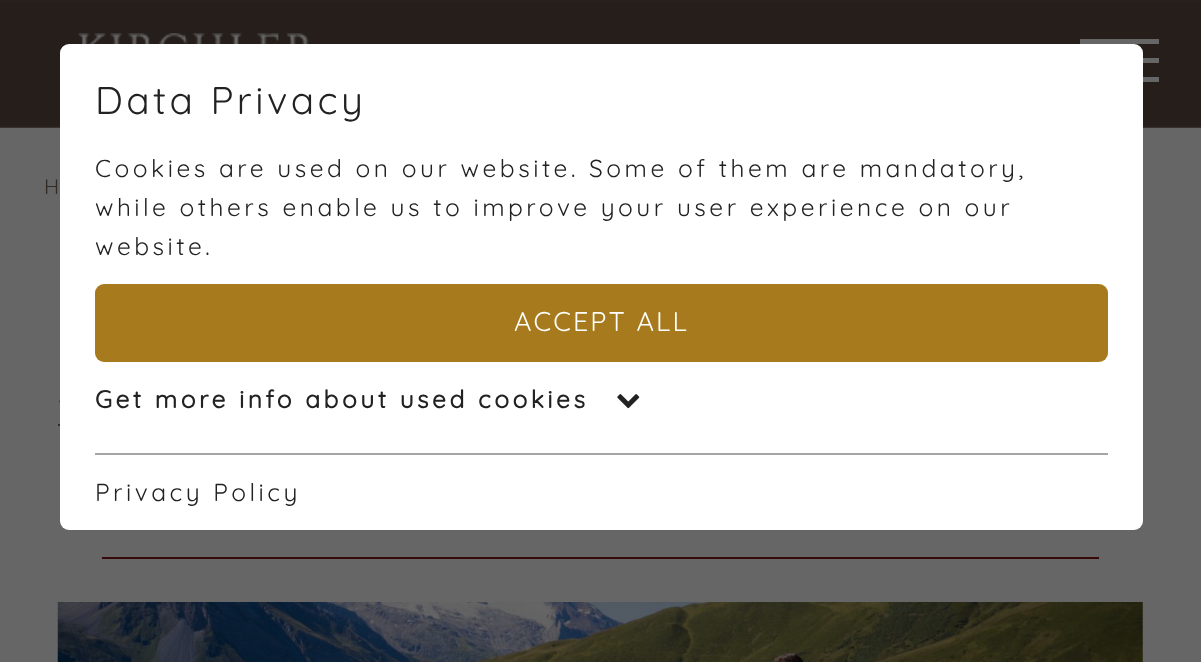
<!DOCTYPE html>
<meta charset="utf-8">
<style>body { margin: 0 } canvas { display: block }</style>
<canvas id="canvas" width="1201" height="662"></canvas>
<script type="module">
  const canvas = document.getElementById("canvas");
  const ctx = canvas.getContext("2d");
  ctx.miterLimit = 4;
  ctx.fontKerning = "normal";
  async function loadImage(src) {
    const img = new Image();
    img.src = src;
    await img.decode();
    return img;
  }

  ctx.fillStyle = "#666666";
  ctx.fillRect(0, 0, 1201, 662);
  ctx.drawImage(await loadImage("img1.png"), 0, 0, 1201, 128);
  ctx.drawImage(await loadImage("img2.png"), 78, 33, 231, 11);
  ctx.fillRect(1080, 39, 79, 5);
  ctx.fillRect(1143, 58, 16, 5);
  ctx.fillRect(1143, 77, 16, 5);
  ctx.letterSpacing = "3.5px";
  ctx.font = "300 21px Quicksand";
  ctx.fillStyle = "#322b25";
  ctx.fillText("H", 44, 194);
  ctx.fillRect(58, 424, 2, 2);
  ctx.drawImage(await loadImage("img3.png"), 59, 400, 1, 3);
  ctx.fillStyle = "#360a09";
  ctx.fillRect(102, 557, 997, 2);
  ctx.drawImage(await loadImage("img4.png"), 57, 602, 1086, 60);
  ctx.fillStyle = "#ffffff";
  ctx.beginPath();
  ctx.roundRect(60, 44, 1083, 486, 9);
  ctx.fill();
  ctx.font = "300 38.5px Quicksand";
  ctx.fillStyle = "#222222";
  ctx.fillText("Data Privacy", 95, 114);
  ctx.font = "300 24.5px Quicksand";
  ctx.fillText("Cookies are used on our website. Some of them are mandatory,", 95, 177);
  ctx.fillText("while others enable us to improve your user experience on our", 95, 216);
  ctx.fillText("website.", 95, 255);
  ctx.fillStyle = "#a77a1d";
  ctx.beginPath();
  ctx.roundRect(95, 284, 1013, 78, 9);
  ctx.fill();
  ctx.letterSpacing = "2.1px";
  ctx.font = "300 27px Quicksand";
  ctx.fillStyle = "#ffffff";
  ctx.fillText("ACCEPT ALL", 514, 331);
  ctx.letterSpacing = "3.5px";
  ctx.font = "bold 24.5px Quicksand";
  ctx.fillStyle = "#222222";
  ctx.fillText("Get more info about used cookies", 95, 408);
  ctx.drawImage(await loadImage("img5.png"), 617, 394, 23, 15);
  ctx.fillStyle = "#a5a5a5";
  ctx.fillRect(95, 453, 1013, 2);
  ctx.font = "300 24.5px Quicksand";
  ctx.fillStyle = "#222222";
  ctx.fillText("Privacy Policy", 95, 501);
</script>
